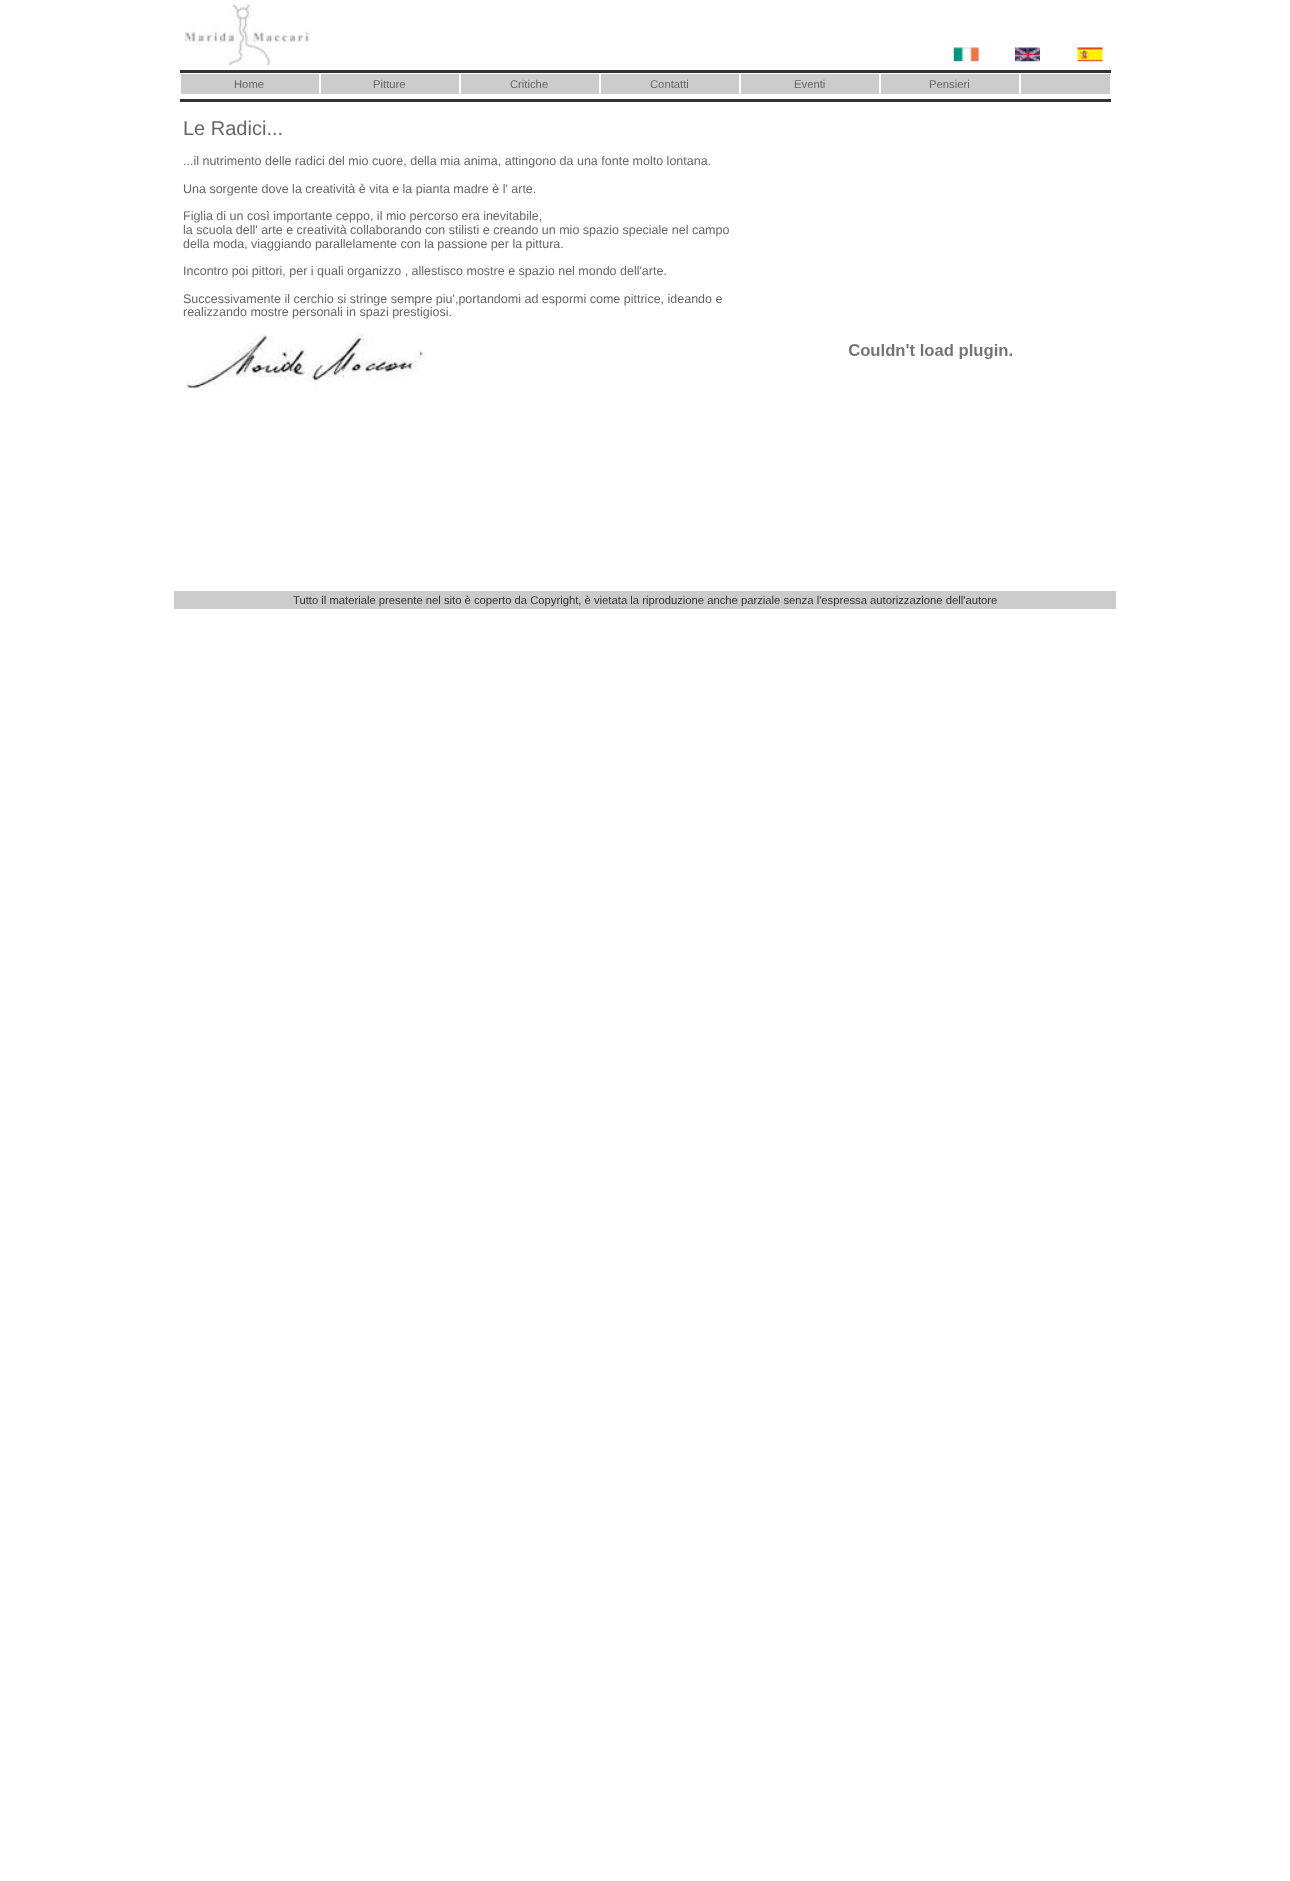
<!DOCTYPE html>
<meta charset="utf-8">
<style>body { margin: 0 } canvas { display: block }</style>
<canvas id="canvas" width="1290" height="1881"></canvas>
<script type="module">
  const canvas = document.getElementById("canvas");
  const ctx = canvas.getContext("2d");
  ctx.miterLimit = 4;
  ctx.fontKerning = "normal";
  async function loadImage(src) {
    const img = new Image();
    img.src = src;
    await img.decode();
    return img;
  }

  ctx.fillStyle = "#ffffff";
  ctx.fillRect(0, 0, 1290, 1881);
  ctx.drawImage(await loadImage("img1.png"), 185, 5, 125, 60);
  ctx.drawImage(await loadImage("img2.png"), 953, 47, 26, 15);
  ctx.drawImage(await loadImage("img3.png"), 1015, 47, 25, 15);
  ctx.drawImage(await loadImage("img4.png"), 1077, 47, 26, 15);
  ctx.fillStyle = "#333333";
  ctx.fillRect(180, 70, 931, 3);
  ctx.fillStyle = "#cccccc";
  ctx.fillRect(181, 74, 138, 20);
  ctx.font = "11.25px Liberation Sans";
  ctx.fillStyle = "#666666";
  ctx.fillText("Home", 234, 88);
  ctx.fillStyle = "#cccccc";
  ctx.fillRect(321, 74, 138, 20);
  ctx.fillStyle = "#666666";
  ctx.fillText("Pitture", 373, 88);
  ctx.fillStyle = "#cccccc";
  ctx.fillRect(461, 74, 138, 20);
  ctx.fillStyle = "#666666";
  ctx.fillText("Critiche", 510, 88);
  ctx.fillStyle = "#cccccc";
  ctx.fillRect(601, 74, 138, 20);
  ctx.fillStyle = "#666666";
  ctx.fillText("Contatti", 650, 88);
  ctx.fillStyle = "#cccccc";
  ctx.fillRect(741, 74, 138, 20);
  ctx.fillStyle = "#666666";
  ctx.fillText("Eventi", 794, 88);
  ctx.fillStyle = "#cccccc";
  ctx.fillRect(881, 74, 138, 20);
  ctx.fillStyle = "#666666";
  ctx.fillText("Pensieri", 929, 88);
  ctx.fillStyle = "#cccccc";
  ctx.fillRect(1021, 74, 89, 20);
  ctx.fillStyle = "#333333";
  ctx.fillRect(180, 99, 931, 3);
  ctx.font = "20px Liberation Sans";
  ctx.fillStyle = "#666666";
  ctx.fillText("Le Radici...", 183, 135);
  ctx.font = "12.5px Liberation Sans";
  ctx.fillText("...il nutrimento delle radici del mio cuore, della mia anima, attingono da una fonte molto lontana.", 183, 165);
  ctx.fillText("Una sorgente dove la creatività è vita e la pianta madre è l' arte.", 183, 193);
  ctx.fillText("Figlia di un così importante ceppo, il mio percorso era inevitabile,", 183, 220);
  ctx.fillText("la scuola dell' arte e creatività collaborando con stilisti e creando un mio spazio speciale nel campo", 183, 234);
  ctx.fillText("della moda, viaggiando parallelamente con la passione per la pittura.", 183, 248);
  ctx.fillText("Incontro poi pittori, per i quali organizzo , allestisco mostre e spazio nel mondo dell'arte.", 183, 275);
  ctx.fillText("Successivamente il cerchio si stringe sempre piu',portandomi ad espormi come pittrice, ideando e", 183, 303);
  ctx.fillText("realizzando mostre personali in spazi prestigiosi.", 183, 316);
  ctx.drawImage(await loadImage("img5.png"), 184, 333, 241, 57);
  ctx.drawImage(await loadImage("img6.png"), 849, 344, 163, 15);
  ctx.fillStyle = "#cccccc";
  ctx.fillRect(174, 591, 942, 18);
  ctx.font = "11.25px Liberation Sans";
  ctx.fillStyle = "#333333";
  ctx.fillText("Tutto il materiale presente nel sito è coperto da Copyright, è vietata la riproduzione anche parziale senza l'espressa autorizzazione dell'autore", 293, 604);
</script>
